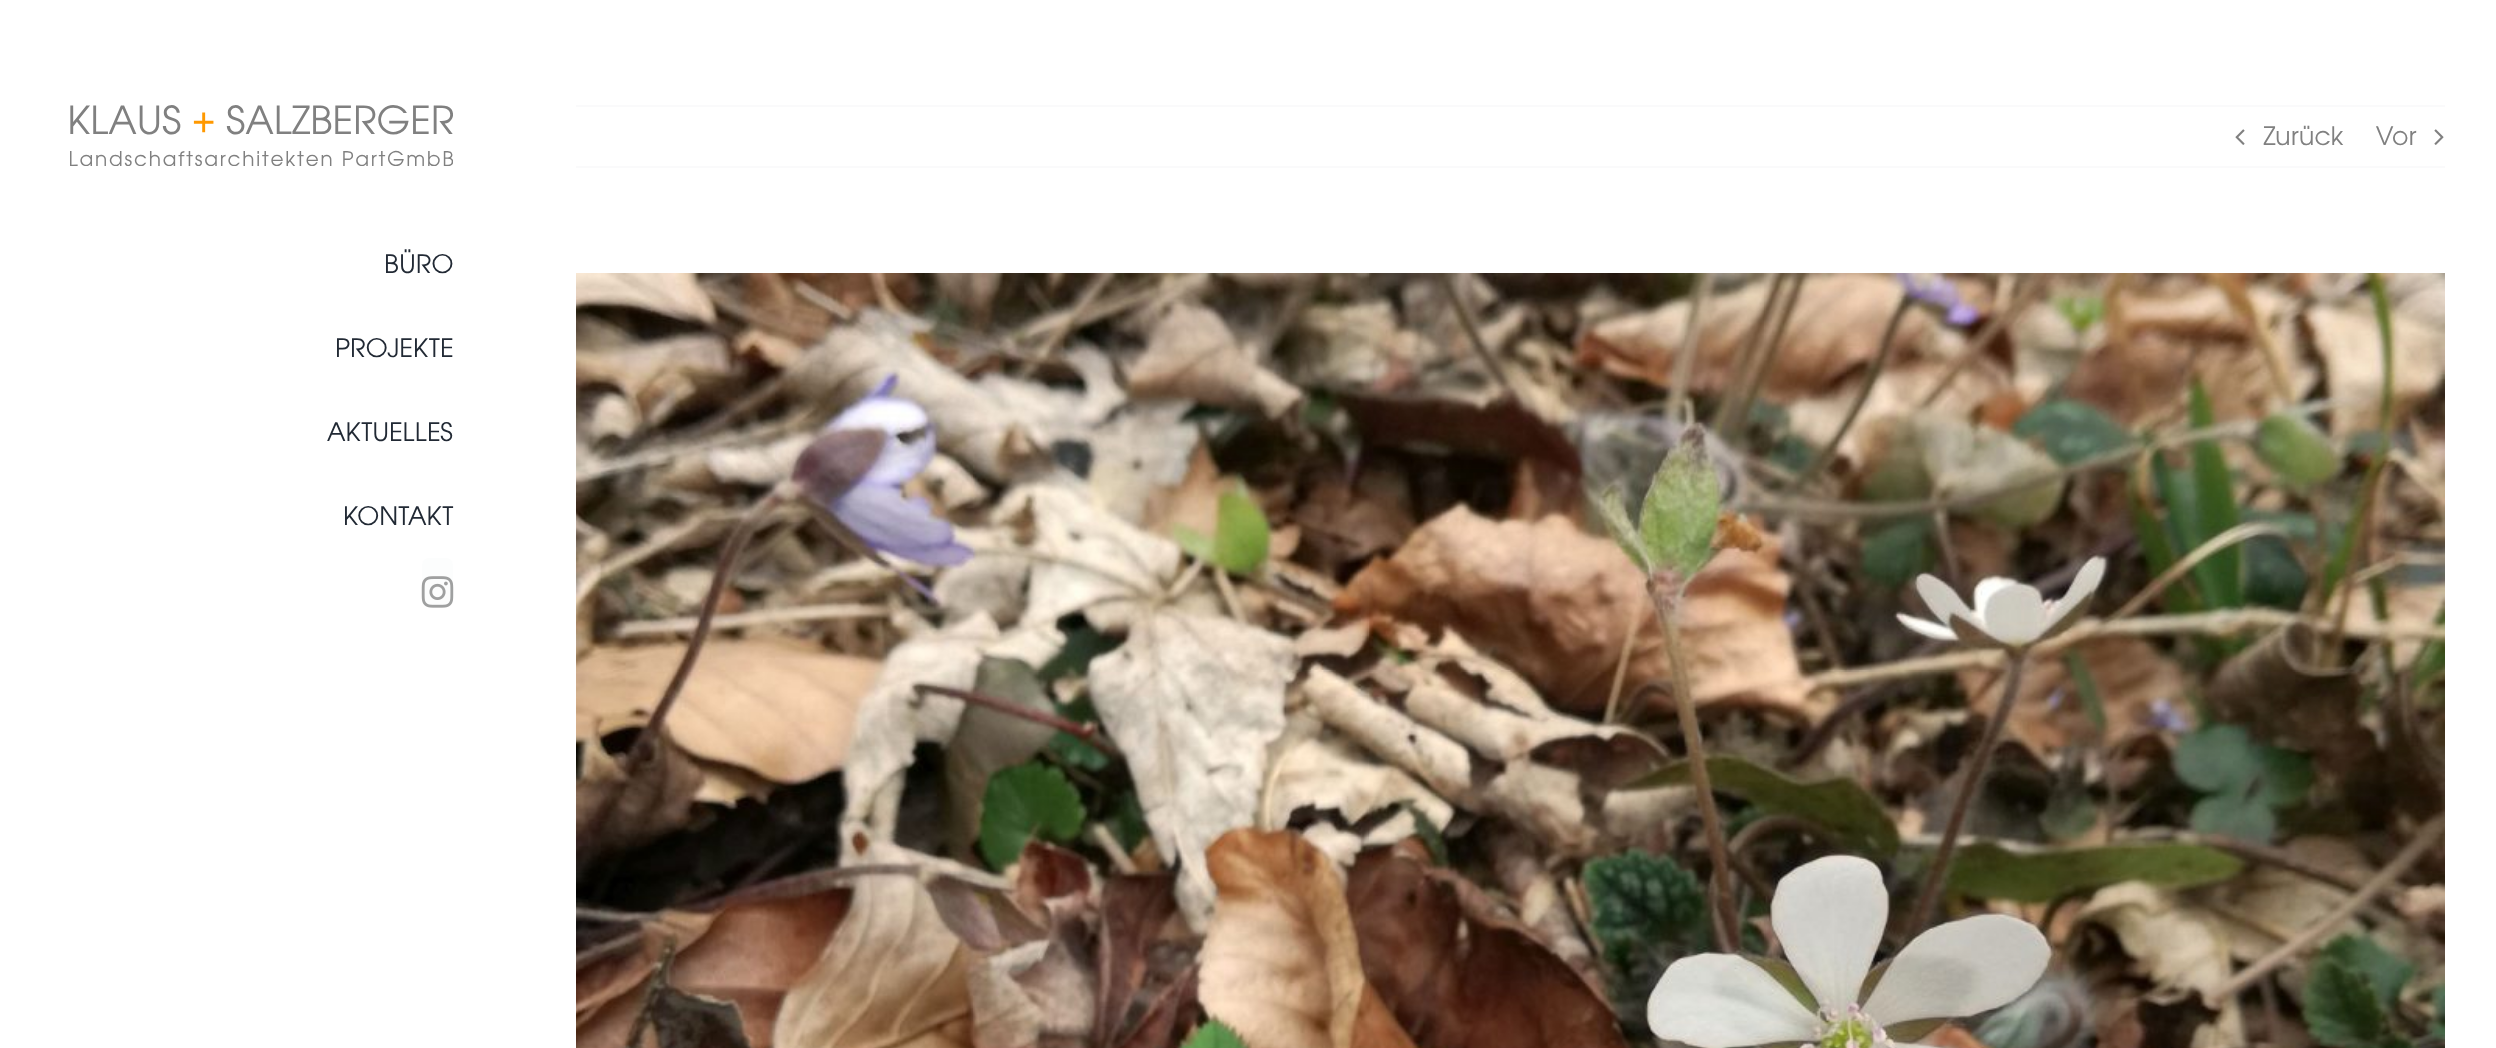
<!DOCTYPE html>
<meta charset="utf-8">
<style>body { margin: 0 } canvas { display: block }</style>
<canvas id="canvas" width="2496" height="1048"></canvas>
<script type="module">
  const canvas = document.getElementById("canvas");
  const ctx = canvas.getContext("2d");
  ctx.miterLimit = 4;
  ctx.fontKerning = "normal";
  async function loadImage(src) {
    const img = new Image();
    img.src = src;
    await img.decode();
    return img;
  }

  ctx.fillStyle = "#ffffff";
  ctx.fillRect(0, 0, 2496, 1048);
  ctx.fillStyle = "#fafafb";
  ctx.fillRect(576, 105, 1869, 2);
  ctx.fillRect(576, 166, 1869, 2);
  ctx.drawImage(await loadImage("img1.png"), 2235, 129, 10, 16);
  ctx.font = "28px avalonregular";
  ctx.fillStyle = "#808080";
  ctx.fillText("Zurück", 2263, 145);
  ctx.fillText("Vor", 2376, 145);
  ctx.drawImage(await loadImage("img2.png"), 2434, 129, 10, 16);
  ctx.drawImage(await loadImage("img3.png"), 576, 273, 1869, 775);
  ctx.drawImage(await loadImage("img4.png"), 70, 105, 383, 61);
  ctx.fillStyle = "#212934";
  ctx.fillText("BÜRO", 384, 273);
  ctx.fillText("PROJEKTE", 335, 357);
  ctx.fillText("AKTUELLES", 327, 441);
  ctx.fillText("KONTAKT", 343, 525);
  ctx.fillStyle = "#fcfdfd";
  ctx.beginPath();
  ctx.roundRect(422, 558, 31, 49, 7);
  ctx.fill();
  ctx.drawImage(await loadImage("img5.png"), 421, 576, 33, 32);
</script>
